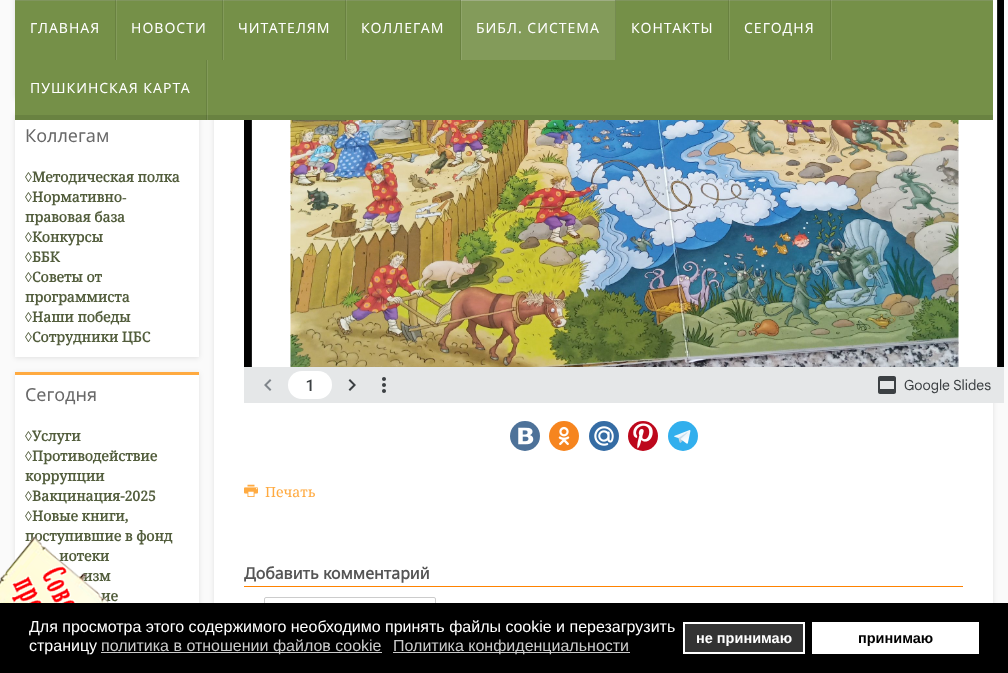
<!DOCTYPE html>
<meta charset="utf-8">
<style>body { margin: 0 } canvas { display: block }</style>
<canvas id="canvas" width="1008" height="673"></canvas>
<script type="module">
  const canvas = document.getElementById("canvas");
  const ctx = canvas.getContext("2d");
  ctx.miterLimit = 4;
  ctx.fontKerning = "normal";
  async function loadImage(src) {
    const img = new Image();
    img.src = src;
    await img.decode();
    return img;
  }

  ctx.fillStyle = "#fafafa";
  ctx.fillRect(0, 0, 1008, 673);
  ctx.fillStyle = "rgba(0, 0, 0, 0.1)";
  ctx.filter = "blur(2.5px)";
  ctx.beginPath();
  ctx.rect(15, -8, 184, 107);
  ctx.fill();
  ctx.filter = "none";
  ctx.filter = "blur(2.5px)";
  ctx.beginPath();
  ctx.rect(15, 114, 184, 244);
  ctx.fill();
  ctx.filter = "none";
  ctx.filter = "blur(2.5px)";
  ctx.beginPath();
  ctx.rect(214, -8, 779, 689);
  ctx.fill();
  ctx.filter = "none";
  ctx.fillStyle = "#ffffff";
  ctx.fillRect(214, 120, 779, 483);
  ctx.drawImage(await loadImage("img1.png"), 244, 0, 760, 403);
  ctx.fillStyle = "#759048";
  ctx.fillRect(15, 1, 978, 114);
  ctx.fillStyle = "#698241";
  ctx.fillRect(206, 60, 1, 60);
  ctx.fillStyle = "#839b5a";
  ctx.fillRect(207, 60, 1, 60);
  ctx.fillStyle = "#698241";
  ctx.fillRect(222, 0, 1, 60);
  ctx.fillStyle = "#839b5a";
  ctx.fillRect(223, 0, 1, 60);
  ctx.fillStyle = "#698241";
  ctx.fillRect(15, 115, 978, 5);
  ctx.fillStyle = "#5f753b";
  ctx.fillRect(206, 115, 1, 5);
  ctx.fillStyle = "#788f54";
  ctx.fillRect(207, 115, 1, 5);
  ctx.fillStyle = "#80955e";
  ctx.fillRect(15, 0, 978, 1);
  ctx.fillStyle = "#738655";
  ctx.fillRect(222, 0, 1, 1);
  ctx.fillStyle = "#8da06e";
  ctx.fillRect(223, 0, 1, 1);
  ctx.fillStyle = "rgba(255, 255, 255, 0.1)";
  ctx.fillRect(116, 0, 1, 60);
  ctx.fillStyle = "rgba(0, 0, 0, 0.1)";
  ctx.fillRect(115, 0, 1, 60);
  ctx.letterSpacing = "1px";
  ctx.font = "14px Noto Sans";
  ctx.fillStyle = "#ffffff";
  ctx.fillText("ГЛАВНАЯ", 30, 33);
  ctx.fillText("НОВОСТИ", 131, 33);
  ctx.fillStyle = "rgba(255, 255, 255, 0.1)";
  ctx.fillRect(346, 0, 1, 60);
  ctx.fillStyle = "rgba(0, 0, 0, 0.1)";
  ctx.fillRect(345, 0, 1, 60);
  ctx.fillStyle = "#ffffff";
  ctx.fillText("ЧИТАТЕЛЯМ", 238, 33);
  ctx.fillStyle = "rgba(255, 255, 255, 0.1)";
  ctx.fillRect(461, 0, 1, 60);
  ctx.fillStyle = "rgba(0, 0, 0, 0.1)";
  ctx.fillRect(460, 0, 1, 60);
  ctx.fillStyle = "#ffffff";
  ctx.fillText("КОЛЛЕГАМ", 361, 33);
  ctx.fillStyle = "rgba(255, 255, 255, 0.1)";
  ctx.fillRect(461, 0, 155, 60);
  ctx.fillStyle = "rgba(255, 255, 255, 0.15)";
  ctx.fillRect(461, 0, 154, 1);
  ctx.fillStyle = "rgba(0, 0, 0, 0.1)";
  ctx.fillRect(615, 0, 1, 60);
  ctx.fillStyle = "#ffffff";
  ctx.fillText("БИБЛ. СИСТЕМА", 476, 33);
  ctx.fillStyle = "rgba(255, 255, 255, 0.1)";
  ctx.fillRect(729, 0, 1, 60);
  ctx.fillStyle = "rgba(0, 0, 0, 0.1)";
  ctx.fillRect(728, 0, 1, 60);
  ctx.fillStyle = "#ffffff";
  ctx.fillText("КОНТАКТЫ", 631, 33);
  ctx.fillStyle = "rgba(255, 255, 255, 0.1)";
  ctx.fillRect(831, 0, 1, 60);
  ctx.fillStyle = "rgba(0, 0, 0, 0.1)";
  ctx.fillRect(830, 0, 1, 60);
  ctx.fillStyle = "#ffffff";
  ctx.fillText("СЕГОДНЯ", 744, 33);
  ctx.fillText("ПУШКИНСКАЯ КАРТА", 30, 93);
  ctx.fillRect(15, 120, 184, 237);
  ctx.letterSpacing = "0px";
  ctx.font = "18px Noto Sans";
  ctx.fillStyle = "#696969";
  ctx.fillText("Коллегам", 25, 142);
  ctx.font = "bold 14px Liberation Serif";
  ctx.fillStyle = "#525d3c";
  ctx.fillText("◊", 25, 182);
  ctx.font = "bold 14px Noto Serif";
  ctx.fillText("Методическая полка", 32, 182);
  ctx.font = "bold 14px Liberation Serif";
  ctx.fillText("◊", 25, 202);
  ctx.font = "bold 14px Noto Serif";
  ctx.fillText("Нормативно", 32, 202);
  ctx.font = "bold 14px Liberation Serif";
  ctx.fillText("-", 122, 202);
  ctx.font = "bold 14px Noto Serif";
  ctx.fillText("правовая база", 25, 222);
  ctx.font = "bold 14px Liberation Serif";
  ctx.fillText("◊", 25, 242);
  ctx.font = "bold 14px Noto Serif";
  ctx.fillText("Конкурсы", 32, 242);
  ctx.font = "bold 14px Liberation Serif";
  ctx.fillText("◊", 25, 262);
  ctx.font = "bold 14px Noto Serif";
  ctx.fillText("ББК", 32, 262);
  ctx.font = "bold 14px Liberation Serif";
  ctx.fillText("◊", 25, 282);
  ctx.font = "bold 14px Noto Serif";
  ctx.fillText("Советы от", 32, 282);
  ctx.fillText("программиста", 25, 302);
  ctx.font = "bold 14px Liberation Serif";
  ctx.fillText("◊", 25, 322);
  ctx.font = "bold 14px Noto Serif";
  ctx.fillText("Наши победы", 32, 322);
  ctx.font = "bold 14px Liberation Serif";
  ctx.fillText("◊", 25, 342);
  ctx.font = "bold 14px Noto Serif";
  ctx.fillText("Сотрудники ЦБС", 32, 342);
  ctx.fillStyle = "rgba(0, 0, 0, 0.1)";
  ctx.filter = "blur(2.5px)";
  ctx.beginPath();
  ctx.rect(15, 373, 184, 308);
  ctx.fill();
  ctx.filter = "none";
  ctx.fillStyle = "#ffffff";
  ctx.fillRect(15, 375, 184, 228);
  ctx.fillStyle = "#ffaa40";
  ctx.fillRect(15, 372, 184, 3);
  ctx.font = "18px Noto Sans";
  ctx.fillStyle = "#696969";
  ctx.fillText("Сегодня", 25, 401);
  ctx.font = "bold 14px Liberation Serif";
  ctx.fillStyle = "#525d3c";
  ctx.fillText("◊", 25, 441);
  ctx.font = "bold 14px Noto Serif";
  ctx.fillText("Услуги", 32, 441);
  ctx.font = "bold 14px Liberation Serif";
  ctx.fillText("◊", 25, 461);
  ctx.font = "bold 14px Noto Serif";
  ctx.fillText("Противодействие", 32, 461);
  ctx.fillText("коррупции", 25, 481);
  ctx.font = "bold 14px Liberation Serif";
  ctx.fillText("◊", 25, 501);
  ctx.font = "bold 14px Noto Serif";
  ctx.fillText("Вакцинация-2025", 32, 501);
  ctx.font = "bold 14px Liberation Serif";
  ctx.fillText("◊", 25, 521);
  ctx.font = "bold 14px Noto Serif";
  ctx.fillText("Новые книги,", 32, 521);
  ctx.fillText("поступившие в фонд", 25, 541);
  ctx.fillText("иотеки", 59, 561);
  ctx.fillText("изм", 83, 581);
  ctx.fillText("ие", 101, 601);
  ctx.fillStyle = "#4e7299";
  ctx.beginPath();
  ctx.arc(525, 436, 15, 0, Math.PI * 2);
  ctx.fill();
  ctx.drawImage(await loadImage("img2.png"), 518, 427, 16, 18);
  ctx.fillStyle = "#f6851f";
  ctx.beginPath();
  ctx.arc(564, 436, 15, 0, Math.PI * 2);
  ctx.fill();
  ctx.drawImage(await loadImage("img3.png"), 558, 426, 12, 20);
  ctx.fillStyle = "#356ca4";
  ctx.beginPath();
  ctx.arc(604, 436, 15, 0, Math.PI * 2);
  ctx.fill();
  ctx.drawImage(await loadImage("img4.png"), 594, 426, 20, 20);
  ctx.fillStyle = "#bd081c";
  ctx.beginPath();
  ctx.arc(643, 436, 15, 0, Math.PI * 2);
  ctx.fill();
  ctx.drawImage(await loadImage("img5.png"), 633, 423, 20, 26);
  ctx.fillStyle = "#32afed";
  ctx.beginPath();
  ctx.arc(683, 436, 15, 0, Math.PI * 2);
  ctx.fill();
  ctx.drawImage(await loadImage("img6.png"), 674, 430, 17, 14);
  ctx.drawImage(await loadImage("img7.png"), 244, 484, 14, 13);
  ctx.font = "14px Noto Serif";
  ctx.fillStyle = "#ffaa40";
  ctx.fillText("Печать", 265, 497);
  ctx.fillStyle = "#ff8200";
  ctx.fillRect(244, 586, 719, 1);
  ctx.font = "bold 16px Noto Sans";
  ctx.fillStyle = "#555555";
  ctx.fillText("Добавить комментарий", 244, 579);
  ctx.beginPath();
  ctx.roundRect(264.5, 597.5, 171, 22, 1.5);
  ctx.strokeStyle = "#cccccc";
  ctx.stroke();
  ctx.drawImage(await loadImage("img8.png"), 0, 536, 111, 67);
  ctx.fillStyle = "#000000";
  ctx.fillRect(0, 603, 1008, 70);
  ctx.font = "16px Liberation Sans";
  ctx.fillStyle = "#ffffff";
  ctx.fillText("Для просмотра этого содержимого необходимо принять файлы cookie и перезагрузить", 29, 632);
  ctx.fillText("страницу", 29, 651);
  ctx.fillStyle = "#cccccc";
  ctx.fillRect(101, 652, 281, 1);
  ctx.fillText("политика в отношении файлов cookie", 101, 651);
  ctx.fillRect(393, 652, 237, 1);
  ctx.fillText("Политика конфиденциальности", 393, 651);
  ctx.fillStyle = "#333333";
  ctx.beginPath();
  ctx.rect(684, 623, 120, 30);
  ctx.fill();
  ctx.strokeStyle = "#ffffff";
  ctx.lineWidth = 2;
  ctx.stroke();
  ctx.font = "bold 14.5px Liberation Sans";
  ctx.fillStyle = "#ffffff";
  ctx.fillText("не принимаю", 696, 643);
  ctx.fillRect(812, 622, 167, 32);
  ctx.fillStyle = "#000000";
  ctx.fillText("принимаю", 858, 643);
</script>
